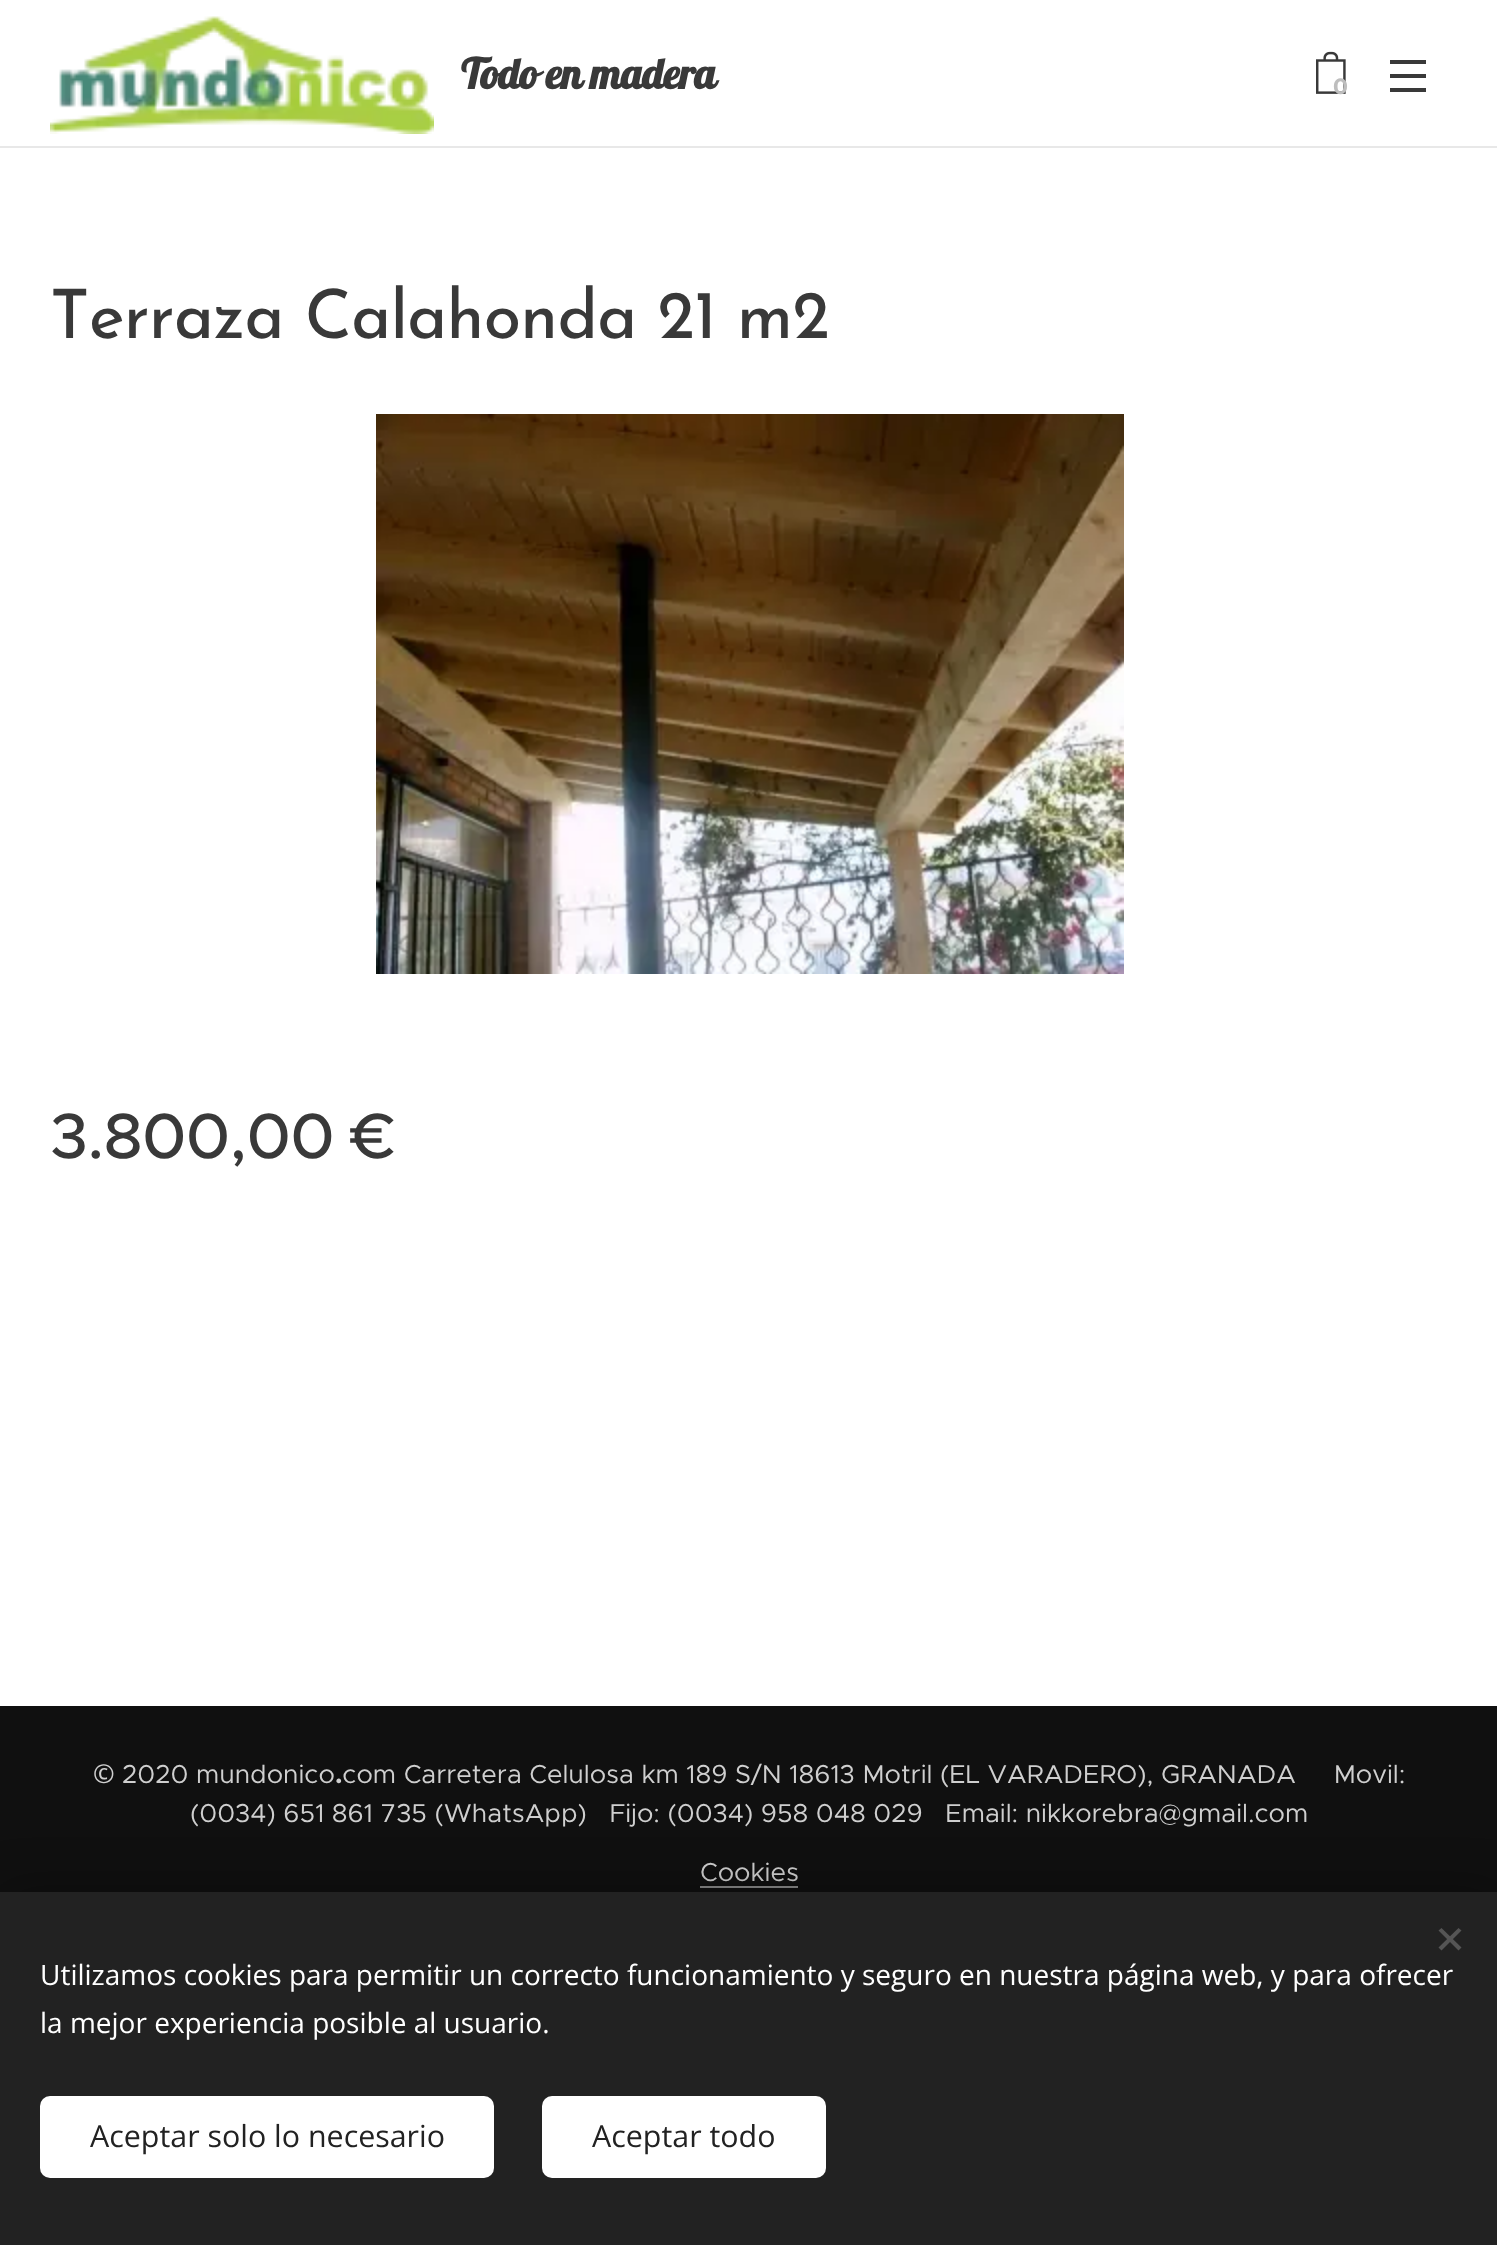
<!DOCTYPE html>
<meta charset="utf-8">
<style>body { margin: 0 } canvas { display: block }</style>
<canvas id="canvas" width="1497" height="2245"></canvas>
<script type="module">
  const canvas = document.getElementById("canvas");
  const ctx = canvas.getContext("2d");
  ctx.miterLimit = 4;
  ctx.fontKerning = "none";
  async function loadImage(src) {
    const img = new Image();
    img.src = src;
    await img.decode();
    return img;
  }

  ctx.fillStyle = "#ffffff";
  ctx.fillRect(0, 0, 1497, 2245);
  ctx.drawImage(await loadImage("img1.png"), 50, 16, 384, 118);
  ctx.letterSpacing = "-0.7px";
  ctx.font = "bold 42px Lobster";
  ctx.fillStyle = "#393939";
  ctx.fillText("Todo en madera", 461, 89);
  ctx.drawImage(await loadImage("img2.png"), 1316, 51, 30, 43);
  ctx.letterSpacing = "0px";
  ctx.font = "bold 22px Montserrat";
  ctx.fillStyle = "#bebebe";
  ctx.fillText("0", 1333, 94);
  ctx.fillStyle = "#393939";
  ctx.fillRect(1390, 74, 36, 4);
  ctx.fillRect(1390, 60, 36, 4);
  ctx.fillRect(1390, 88, 36, 4);
  ctx.fillStyle = "#e8e8e8";
  ctx.fillRect(0, 146, 1497, 2);
  ctx.letterSpacing = "-0.7px";
  ctx.font = "68px Josefin Sans";
  ctx.fillStyle = "#393939";
  ctx.fillText("Terraza Calahonda 21 m2", 50, 338);
  ctx.drawImage(await loadImage("img3.png"), 376, 414, 748, 560);
  ctx.font = "500 64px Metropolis";
  ctx.fillText("3.800,00 €", 50, 1158);
  ctx.fillStyle = "#101010";
  ctx.fillRect(0, 1706, 1497, 186);
  ctx.letterSpacing = "0px";
  ctx.font = "26px Noto Sans";
  ctx.fillStyle = "#cfcfcf";
  ctx.fillText("©", 93, 1783);
  ctx.font = "26px Metropolis";
  ctx.fillText("2020 mundonico com Carretera Celulosa km 189 S/N 18613 Motril (EL VARADERO), GRANADA     Movil:", 122, 1783);
  ctx.font = "bold 26px Metropolis";
  ctx.fillText(".", 335, 1783);
  ctx.font = "26px Metropolis";
  ctx.fillText("(0034) 651 861 735 (WhatsApp)   Fijo: (0034) 958 048 029   Email: nikkorebra@gmail.com", 190, 1822);
  ctx.fillText("Cookies", 700, 1881);
  ctx.fillStyle = "#888888";
  ctx.fillRect(700, 1886, 98, 2);
  ctx.fillStyle = "rgba(0, 0, 0, 0.33)";
  ctx.filter = "blur(25px)";
  ctx.beginPath();
  ctx.rect(0, 1892, 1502, 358);
  ctx.fill();
  ctx.filter = "none";
  ctx.fillStyle = "#222222";
  ctx.fillRect(0, 1892, 1497, 353);
  ctx.fillStyle = "#555555";
  ctx.beginPath();
  ctx.moveTo(1438.5, 1947.5);
  ctx.lineTo(1458.5, 1928);
  ctx.lineTo(1461.5, 1930.5);
  ctx.lineTo(1441.5, 1950.5);
  ctx.closePath();
  ctx.fill();
  ctx.beginPath();
  ctx.moveTo(1441.5, 1928);
  ctx.lineTo(1461.5, 1947.5);
  ctx.lineTo(1458.5, 1950.5);
  ctx.lineTo(1438.5, 1930.5);
  ctx.closePath();
  ctx.fill();
  ctx.font = "28px Open Sans";
  ctx.fillStyle = "#ffffff";
  ctx.fillText("Utilizamos cookies para permitir un correcto funcionamiento y seguro en nuestra página web, y para ofrecer", 40, 1985);
  ctx.fillText("la mejor experiencia posible al usuario.", 40, 2033);
  ctx.beginPath();
  ctx.roundRect(40, 2096, 454, 82, 10);
  ctx.fill();
  ctx.font = "30.4px Open Sans";
  ctx.fillStyle = "#222222";
  ctx.fillText("Aceptar solo lo necesario", 90, 2147);
  ctx.fillStyle = "#ffffff";
  ctx.beginPath();
  ctx.roundRect(542, 2096, 284, 82, 10);
  ctx.fill();
  ctx.fillStyle = "#222222";
  ctx.fillText("Aceptar todo", 592, 2147);
</script>
